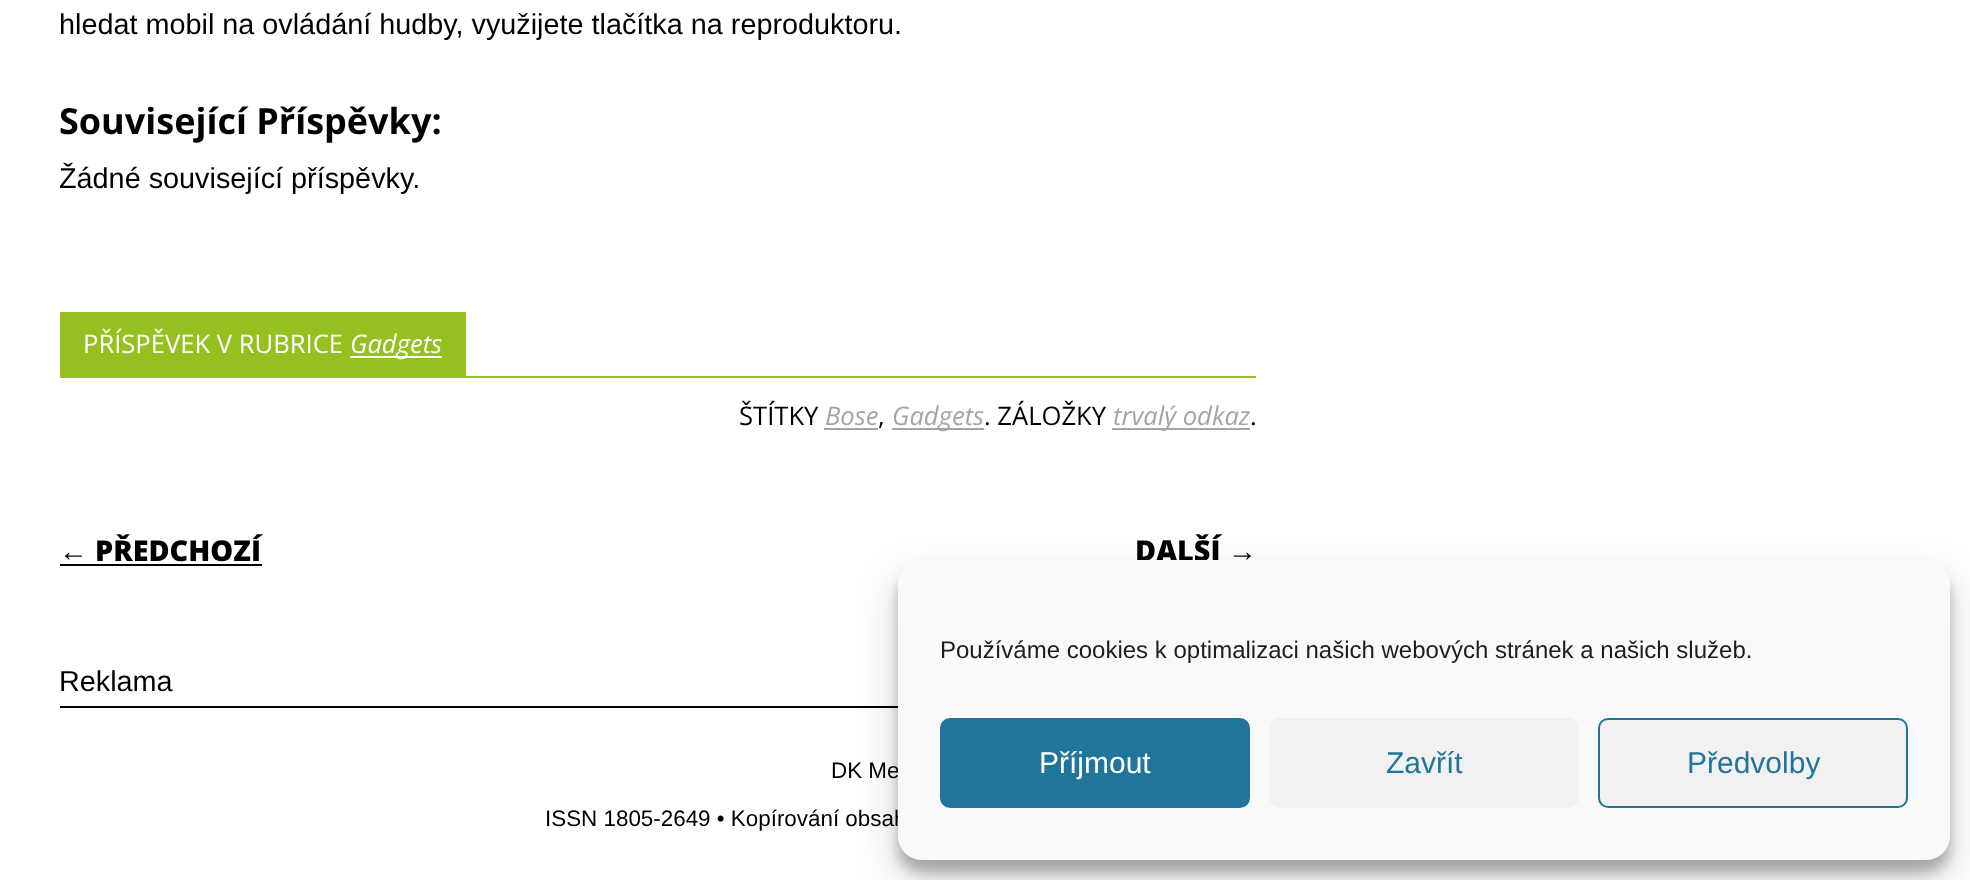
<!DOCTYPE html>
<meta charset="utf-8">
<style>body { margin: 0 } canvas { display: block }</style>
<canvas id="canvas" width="1970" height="880"></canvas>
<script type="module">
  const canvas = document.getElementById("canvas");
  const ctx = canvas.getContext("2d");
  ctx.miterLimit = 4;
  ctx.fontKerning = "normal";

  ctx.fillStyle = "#ffffff";
  ctx.fillRect(0, 0, 1970, 880);
  ctx.font = "28.8px Liberation Sans";
  ctx.fillStyle = "#000000";
  ctx.fillText("hledat mobil na ovládání hudby, využijete tlačítka na reproduktoru.", 59, 34);
  ctx.font = "bold 36px Open Sans";
  ctx.fillText("Související Příspěvky:", 59, 134);
  ctx.font = "28.8px Liberation Sans";
  ctx.fillText("Žádné související příspěvky.", 59, 188);
  ctx.fillStyle = "#94c11f";
  ctx.fillRect(60, 312, 406, 64);
  ctx.font = "25.6px Open Sans";
  ctx.fillStyle = "#ffffff";
  ctx.fillText("PŘÍSPĚVEK V RUBRICE", 83, 353);
  ctx.fillRect(350, 356, 92, 2);
  ctx.font = "italic 25.6px Open Sans";
  ctx.fillText("Gadgets", 350, 353);
  ctx.fillStyle = "#94c11f";
  ctx.fillRect(60, 376, 1196, 2);
  ctx.font = "25.6px Open Sans";
  ctx.fillStyle = "#000000";
  ctx.fillText("ŠTÍTKY", 739, 425);
  ctx.font = "italic 25.6px Open Sans";
  ctx.fillStyle = "#a4a4a4";
  ctx.fillText("Bose", 825, 425);
  ctx.fillRect(824, 428, 54, 2);
  ctx.font = "25.6px Open Sans";
  ctx.fillStyle = "#000000";
  ctx.fillText(",", 878, 425);
  ctx.fillStyle = "#a4a4a4";
  ctx.fillRect(892, 428, 92, 2);
  ctx.font = "italic 25.6px Open Sans";
  ctx.fillText("Gadgets", 892, 425);
  ctx.font = "25.6px Open Sans";
  ctx.fillStyle = "#000000";
  ctx.fillText(". ZÁLOŽKY", 984, 425);
  ctx.fillStyle = "#a4a4a4";
  ctx.fillRect(1112, 428, 138, 2);
  ctx.font = "italic 25.6px Open Sans";
  ctx.fillText("trvalý odkaz", 1113, 425);
  ctx.font = "25.6px Open Sans";
  ctx.fillStyle = "#000000";
  ctx.fillText(".", 1250, 425);
  ctx.font = "bold 28.8px Liberation Sans";
  ctx.fillText("←", 59, 561);
  ctx.fillRect(60, 564, 202, 2);
  ctx.font = "800 28.8px Open Sans";
  ctx.fillText("PŘEDCHOZÍ", 95, 561);
  ctx.fillText("DALŠÍ", 1135, 561);
  ctx.font = "bold 28.8px Liberation Sans";
  ctx.fillText("→", 1228, 561);
  ctx.font = "28.8px Liberation Sans";
  ctx.fillText("Reklama", 59, 691);
  ctx.fillRect(60, 706, 838, 2);
  ctx.font = "22.4px Liberation Sans";
  ctx.fillText("DK Me", 831, 778);
  ctx.fillText("ISSN 1805-2649 • Kopírování obsah", 545, 826);
  ctx.fillStyle = "rgba(0, 0, 0, 0.23)";
  ctx.filter = "blur(6px)";
  ctx.beginPath();
  ctx.roundRect(898, 572, 1052, 300, 24);
  ctx.fill();
  ctx.filter = "none";
  ctx.fillStyle = "rgba(0, 0, 0, 0.19)";
  ctx.filter = "blur(20px)";
  ctx.beginPath();
  ctx.roundRect(898, 580, 1052, 300, 24);
  ctx.fill();
  ctx.filter = "none";
  ctx.fillStyle = "#f9f9f9";
  ctx.beginPath();
  ctx.roundRect(899, 561, 1050, 298, 23);
  ctx.fill();
  ctx.strokeStyle = "#f9f9f9";
  ctx.lineWidth = 2;
  ctx.stroke();
  ctx.font = "24px Liberation Sans";
  ctx.fillStyle = "#191e23";
  ctx.fillText("Používáme cookies k optimalizaci našich webových stránek a našich služeb.", 940, 658);
  ctx.fillStyle = "#21759b";
  ctx.beginPath();
  ctx.roundRect(941, 719, 308, 88, 9);
  ctx.fill();
  ctx.strokeStyle = "#21759b";
  ctx.stroke();
  ctx.font = "30px Liberation Sans";
  ctx.fillStyle = "#ffffff";
  ctx.fillText("Příjmout", 1039, 773);
  ctx.fillStyle = "#f1f1f1";
  ctx.beginPath();
  ctx.roundRect(1270, 718, 308, 90, 10);
  ctx.fill();
  ctx.fillStyle = "#21759b";
  ctx.fillText("Zavřít", 1386, 773);
  ctx.fillStyle = "#f1f1f1";
  ctx.beginPath();
  ctx.roundRect(1599, 719, 308, 88, 9);
  ctx.fill();
  ctx.stroke();
  ctx.fillStyle = "#21759b";
  ctx.fillText("Předvolby", 1687, 773);
</script>
